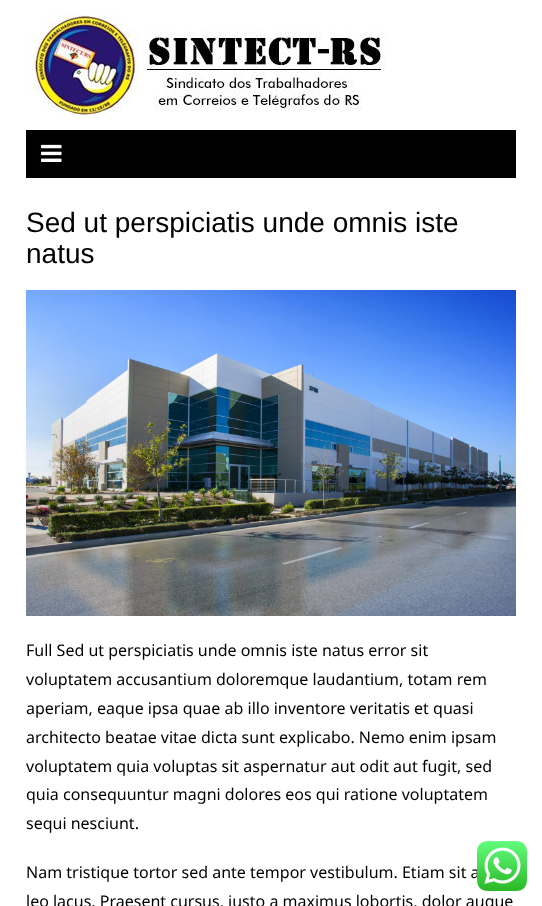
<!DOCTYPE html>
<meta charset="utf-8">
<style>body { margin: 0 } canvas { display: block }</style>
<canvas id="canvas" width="542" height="906"></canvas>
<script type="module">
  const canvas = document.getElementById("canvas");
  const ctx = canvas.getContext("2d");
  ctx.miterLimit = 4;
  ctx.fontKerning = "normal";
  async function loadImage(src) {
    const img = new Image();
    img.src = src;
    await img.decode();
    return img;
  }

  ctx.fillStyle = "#ffffff";
  ctx.fillRect(0, 0, 542, 906);
  ctx.drawImage(await loadImage("img1.png"), 26, 15, 360, 100);
  ctx.fillStyle = "#000000";
  ctx.fillRect(26, 130, 490, 48);
  ctx.drawImage(await loadImage("img2.png"), 41, 144, 21, 18);
  ctx.font = "28px Liberation Sans";
  ctx.fillStyle = "#010101";
  ctx.fillText("Sed ut perspiciatis unde omnis iste", 26, 232);
  ctx.fillText("natus", 26, 263);
  ctx.drawImage(await loadImage("img3.png"), 26, 290, 490, 326);
  ctx.font = "16px Noto Sans";
  ctx.fillText("Full Sed ut perspiciatis unde omnis iste natus error sit", 26, 656);
  ctx.fillText("voluptatem accusantium doloremque laudantium, totam rem", 26, 685);
  ctx.fillText("aperiam, eaque ipsa quae ab illo inventore veritatis et quasi", 26, 714);
  ctx.fillText("architecto beatae vitae dicta sunt explicabo. Nemo enim ipsam", 26, 743);
  ctx.fillText("voluptatem quia voluptas sit aspernatur aut odit aut fugit, sed", 26, 772);
  ctx.fillText("quia consequuntur magni dolores eos qui ratione voluptatem", 26, 800);
  ctx.fillText("sequi nesciunt.", 26, 829);
  ctx.fillText("Nam tristique tortor sed ante tempor vestibulum. Etiam sit a", 26, 878);
  ctx.fillText("leo lacus. Praesent cursus, justo a maximus lobortis, dolor augue", 26, 907);
  ctx.drawImage(await loadImage("img4.png"), 477, 841, 50, 50);
</script>
